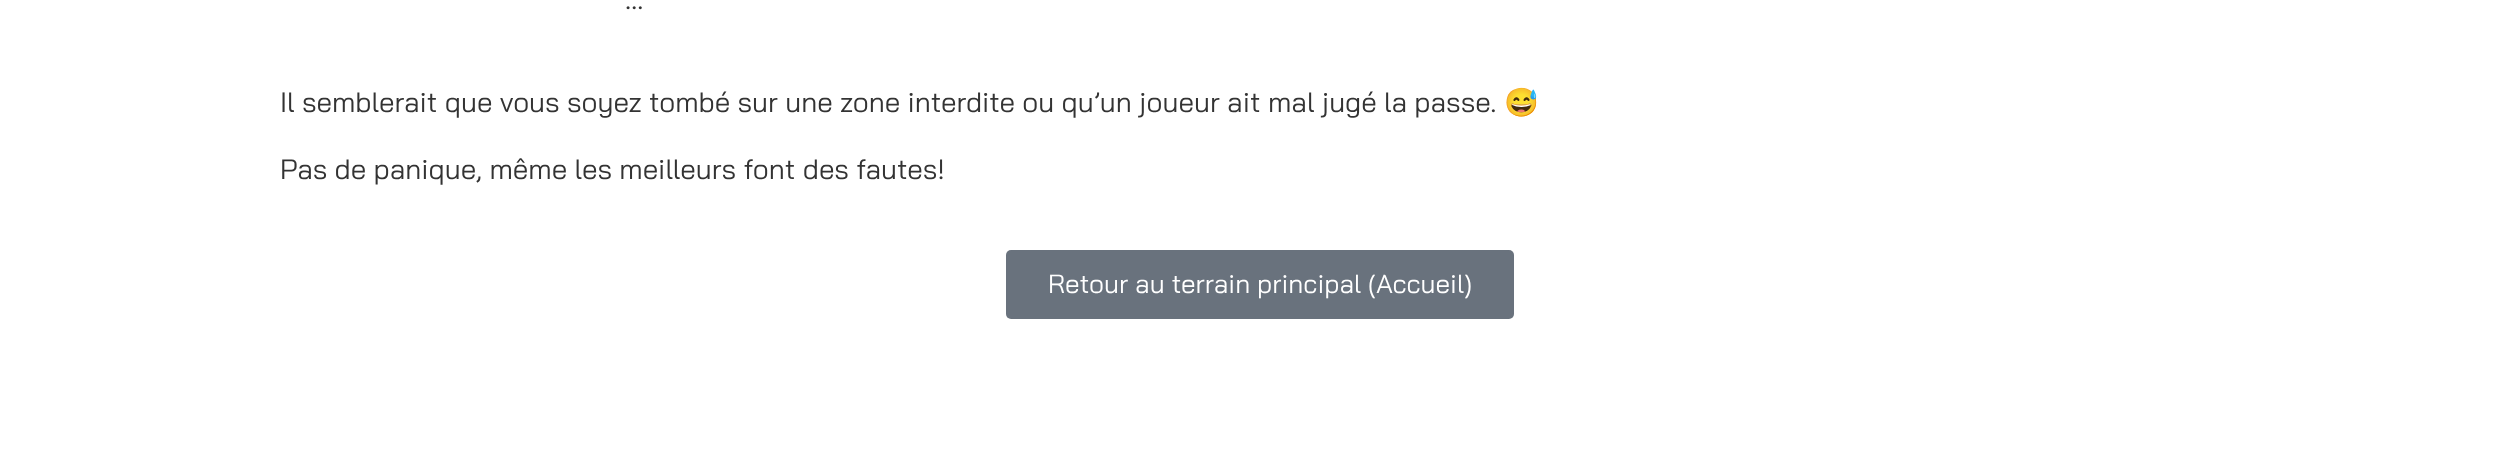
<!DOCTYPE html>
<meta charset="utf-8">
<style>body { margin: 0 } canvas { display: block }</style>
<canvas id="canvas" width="2520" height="461"></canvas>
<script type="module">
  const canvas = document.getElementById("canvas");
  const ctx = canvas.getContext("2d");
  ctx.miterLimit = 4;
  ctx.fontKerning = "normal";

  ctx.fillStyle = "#ffffff";
  ctx.fillRect(0, 0, 2520, 461);
  ctx.font = "28px Bai Jamjuree";
  ctx.fillStyle = "#333333";
  ctx.fillText("…", 625, 9);
  ctx.fillText("Il semblerait que vous soyez tombé sur une zone interdite ou qu’un joueur ait mal jugé la passe.", 280, 112);
  ctx.font = "28px Noto Color Emoji";
  ctx.fillText("😅", 1504, 112);
  ctx.font = "28px Bai Jamjuree";
  ctx.fillText("Pas de panique, même les meilleurs font des fautes!", 280, 179);
  ctx.fillStyle = "#69727d";
  ctx.beginPath();
  ctx.roundRect(1006, 250, 508, 69, 5);
  ctx.fill();
  ctx.font = "26.25px Bai Jamjuree";
  ctx.fillStyle = "#ffffff";
  ctx.fillText("Retour au terrain principal (Accueil)", 1048, 293);
</script>
